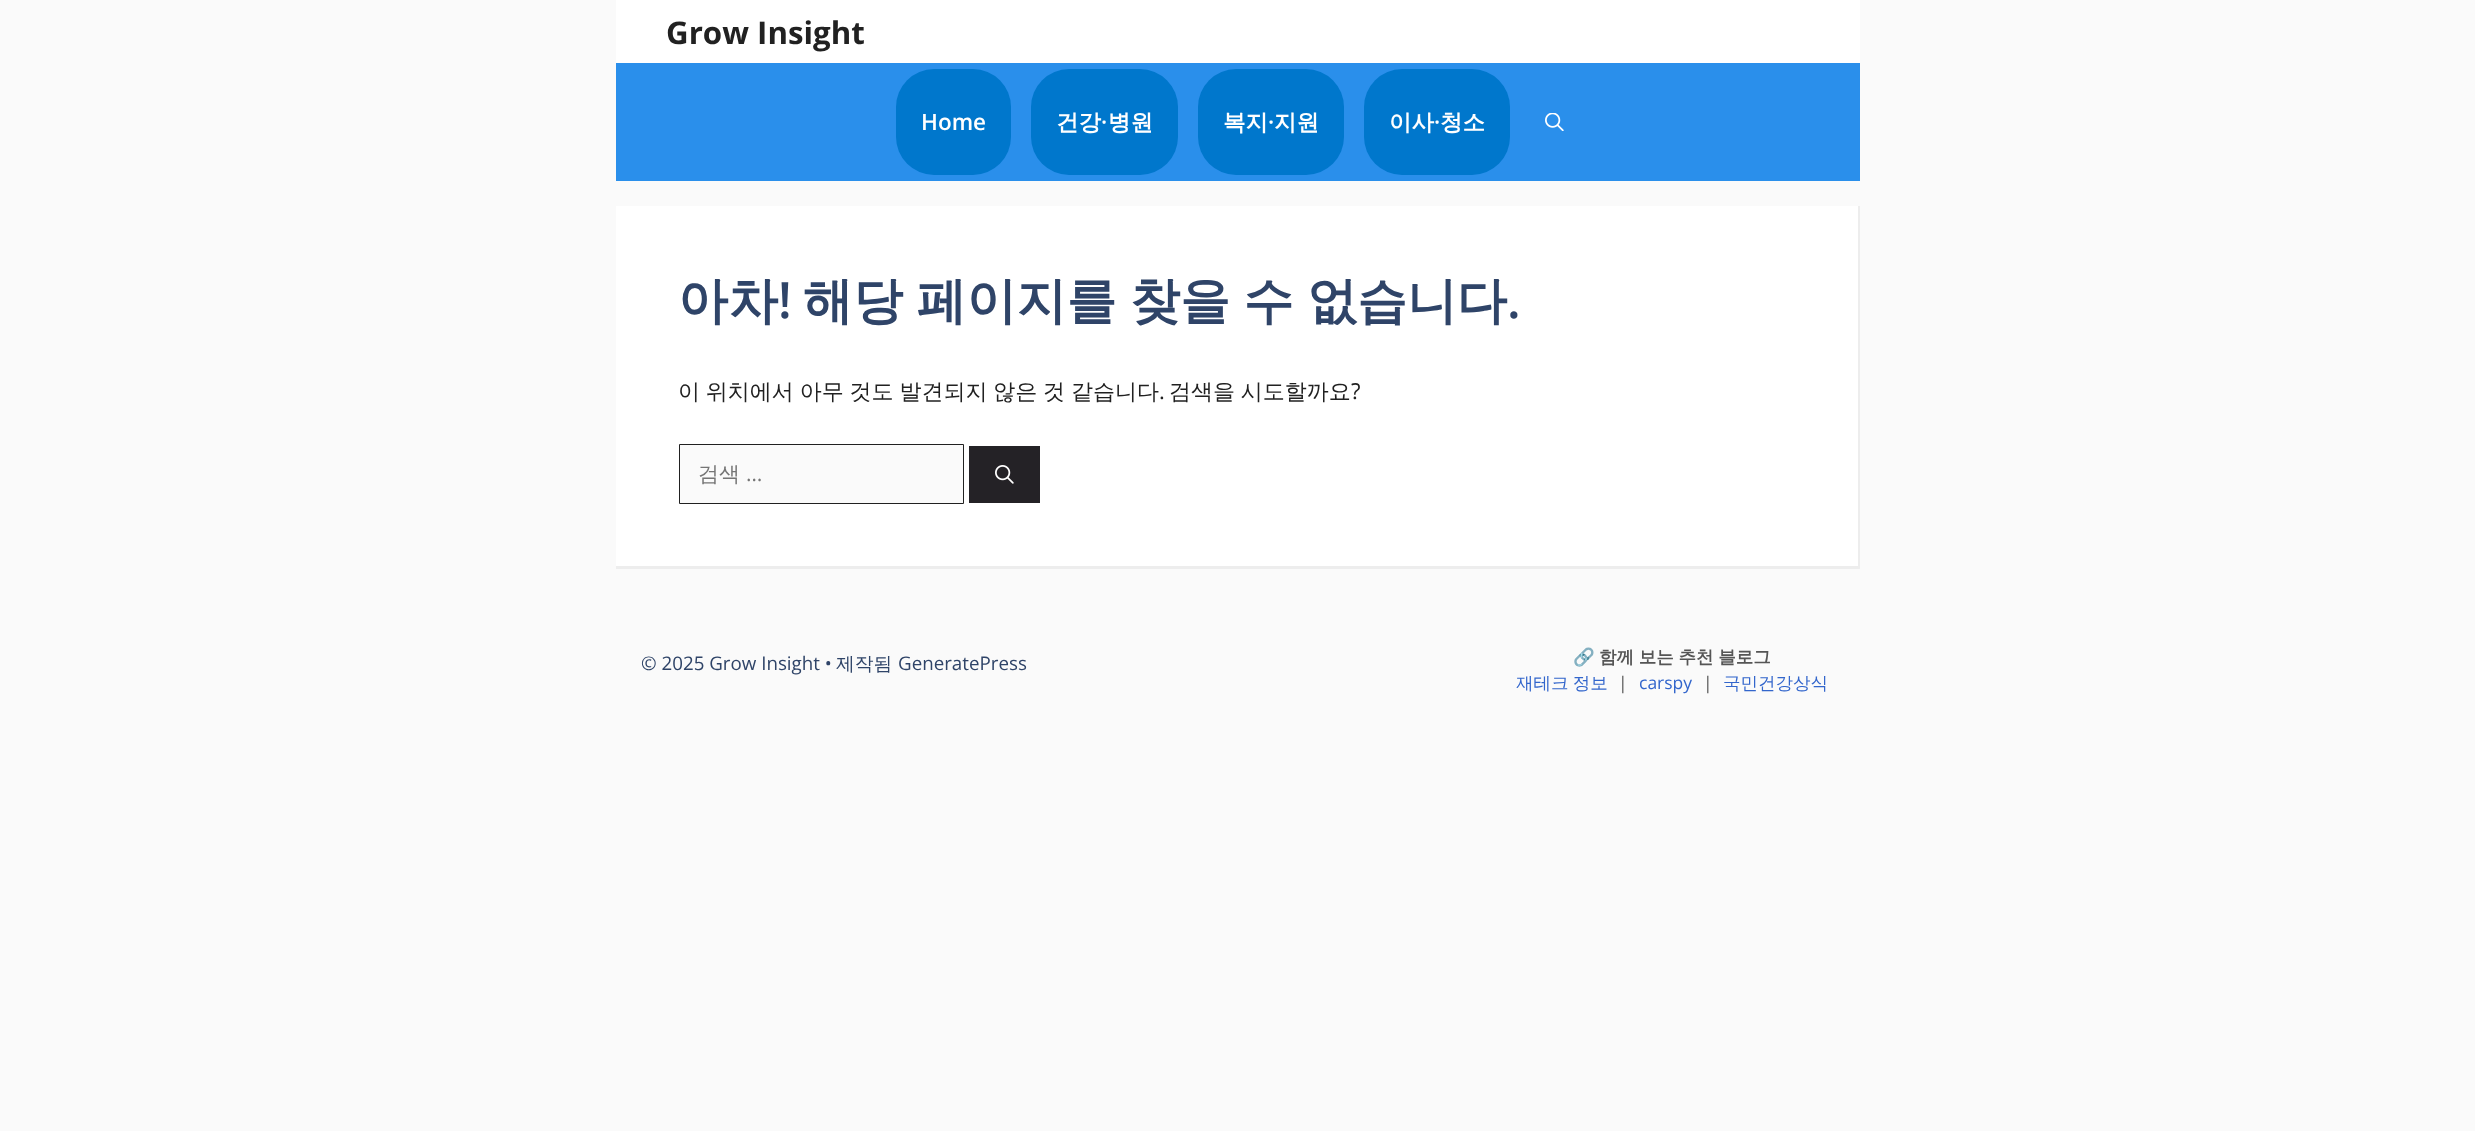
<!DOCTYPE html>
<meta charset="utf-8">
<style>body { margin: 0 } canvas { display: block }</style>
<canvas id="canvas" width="2475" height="1131"></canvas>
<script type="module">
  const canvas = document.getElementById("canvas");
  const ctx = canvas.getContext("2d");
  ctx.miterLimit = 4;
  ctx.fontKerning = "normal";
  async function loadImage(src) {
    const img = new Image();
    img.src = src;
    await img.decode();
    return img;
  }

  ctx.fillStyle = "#fafafa";
  ctx.fillRect(0, 0, 2475, 1131);
  ctx.fillStyle = "#ffffff";
  ctx.fillRect(616, 0, 1244, 63);
  ctx.font = "bold 31.25px Open Sans";
  ctx.fillStyle = "#212121";
  ctx.fillText("Grow Insight", 666, 44);
  ctx.fillStyle = "#2a8feb";
  ctx.fillRect(616, 63, 1244, 118);
  ctx.fillStyle = "#0077cc";
  ctx.beginPath();
  ctx.roundRect(896, 69, 115, 106, 38);
  ctx.fill();
  ctx.font = "600 22.5px Open Sans";
  ctx.fillStyle = "#ffffff";
  ctx.fillText("Home", 921, 130);
  ctx.fillStyle = "#0077cc";
  ctx.beginPath();
  ctx.roundRect(1031, 69, 147, 106, 38);
  ctx.fill();
  ctx.font = "bold 22.5px WenQuanYi Zen Hei";
  ctx.fillStyle = "#ffffff";
  ctx.fillText("건강", 1056, 130);
  ctx.font = "600 22.5px Open Sans";
  ctx.fillText("·", 1101, 130);
  ctx.font = "bold 22.5px WenQuanYi Zen Hei";
  ctx.fillText("병원", 1108, 130);
  ctx.fillStyle = "#0077cc";
  ctx.beginPath();
  ctx.roundRect(1198, 69, 146, 106, 38);
  ctx.fill();
  ctx.fillStyle = "#ffffff";
  ctx.fillText("복지", 1223, 130);
  ctx.font = "600 22.5px Open Sans";
  ctx.fillText("·", 1268, 130);
  ctx.font = "bold 22.5px WenQuanYi Zen Hei";
  ctx.fillText("지원", 1274, 130);
  ctx.fillStyle = "#0077cc";
  ctx.beginPath();
  ctx.roundRect(1364, 69, 146, 106, 38);
  ctx.fill();
  ctx.fillStyle = "#ffffff";
  ctx.fillText("이사", 1389, 130);
  ctx.font = "600 22.5px Open Sans";
  ctx.fillText("·", 1434, 130);
  ctx.font = "bold 22.5px WenQuanYi Zen Hei";
  ctx.fillText("청소", 1440, 130);
  ctx.drawImage(await loadImage("img1.png"), 1545, 113, 19, 18);
  ctx.fillRect(616, 206, 1244, 363);
  ctx.fillStyle = "#ededed";
  ctx.beginPath();
  ctx.moveTo(1860, 206);
  ctx.lineTo(1860, 569);
  ctx.lineTo(1858, 566);
  ctx.lineTo(1858, 206);
  ctx.closePath();
  ctx.fill();
  ctx.fillStyle = "rgba(0, 0, 0, 0.07)";
  ctx.beginPath();
  ctx.moveTo(1860, 569);
  ctx.lineTo(616, 569);
  ctx.lineTo(616, 566);
  ctx.lineTo(1858, 566);
  ctx.closePath();
  ctx.fill();
  ctx.font = "bold 50px WenQuanYi Zen Hei";
  ctx.fillStyle = "#2f4468";
  ctx.fillText("아차", 678, 318);
  ctx.font = "600 50px Open Sans";
  ctx.fillText("!", 778, 318);
  ctx.wordSpacing = "-1.5px";
  ctx.font = "bold 50px WenQuanYi Zen Hei";
  ctx.fillText("해당 페이지를 찾을 수 없습니다", 803, 318);
  ctx.wordSpacing = "0px";
  ctx.font = "600 50px Open Sans";
  ctx.fillText(".", 1507, 318);
  ctx.wordSpacing = "-0.75px";
  ctx.font = "500 22px WenQuanYi Zen Hei";
  ctx.fillStyle = "#212121";
  ctx.fillText("이 위치에서 아무 것도 발견되지 않은 것 같습니다", 678, 399);
  ctx.wordSpacing = "0px";
  ctx.font = "22px Open Sans";
  ctx.fillText(".", 1159, 399);
  ctx.wordSpacing = "-0.75px";
  ctx.font = "500 22px WenQuanYi Zen Hei";
  ctx.fillText("검색을 시도할까요", 1169, 399);
  ctx.wordSpacing = "0px";
  ctx.font = "22px Open Sans";
  ctx.fillText("?", 1351, 399);
  ctx.fillStyle = "#fafafa";
  ctx.beginPath();
  ctx.rect(679.5, 444.5, 284, 59);
  ctx.fill();
  ctx.strokeStyle = "#212121";
  ctx.stroke();
  ctx.font = "500 21px WenQuanYi Zen Hei";
  ctx.fillStyle = "#757575";
  ctx.fillText("검색", 698, 481);
  ctx.font = "21px Open Sans";
  ctx.fillText("…", 746, 481);
  ctx.fillStyle = "#242226";
  ctx.fillRect(969, 446, 71, 57);
  ctx.drawImage(await loadImage("img2.png"), 995, 465, 19, 19);
  ctx.font = "18.75px Open Sans";
  ctx.fillStyle = "#2f4468";
  ctx.fillText("© 2025 Grow Insight •", 641, 670);
  ctx.font = "500 18.75px WenQuanYi Zen Hei";
  ctx.fillText("제작됨", 836, 670);
  ctx.font = "18.75px Open Sans";
  ctx.fillText("GeneratePress", 898, 670);
  ctx.font = "bold 17.5px Noto Color Emoji";
  ctx.fillStyle = "#555555";
  ctx.fillText("🔗", 1573, 663);
  ctx.wordSpacing = "-0.5px";
  ctx.font = "bold 17.5px WenQuanYi Zen Hei";
  ctx.fillText("함께 보는 추천 블로그", 1599, 663);
  ctx.wordSpacing = "-1px";
  ctx.font = "500 17.5px WenQuanYi Zen Hei";
  ctx.fillStyle = "#3366cc";
  ctx.fillText("재테크 정보", 1516, 689);
  ctx.wordSpacing = "0px";
  ctx.font = "17.5px Open Sans";
  ctx.fillStyle = "#555555";
  ctx.fillText("|", 1618, 689);
  ctx.fillStyle = "#3366cc";
  ctx.fillText("carspy", 1639, 689);
  ctx.fillStyle = "#555555";
  ctx.fillText("|", 1703, 689);
  ctx.font = "500 17.5px WenQuanYi Zen Hei";
  ctx.fillStyle = "#3366cc";
  ctx.fillText("국민건강상식", 1723, 689);
</script>
